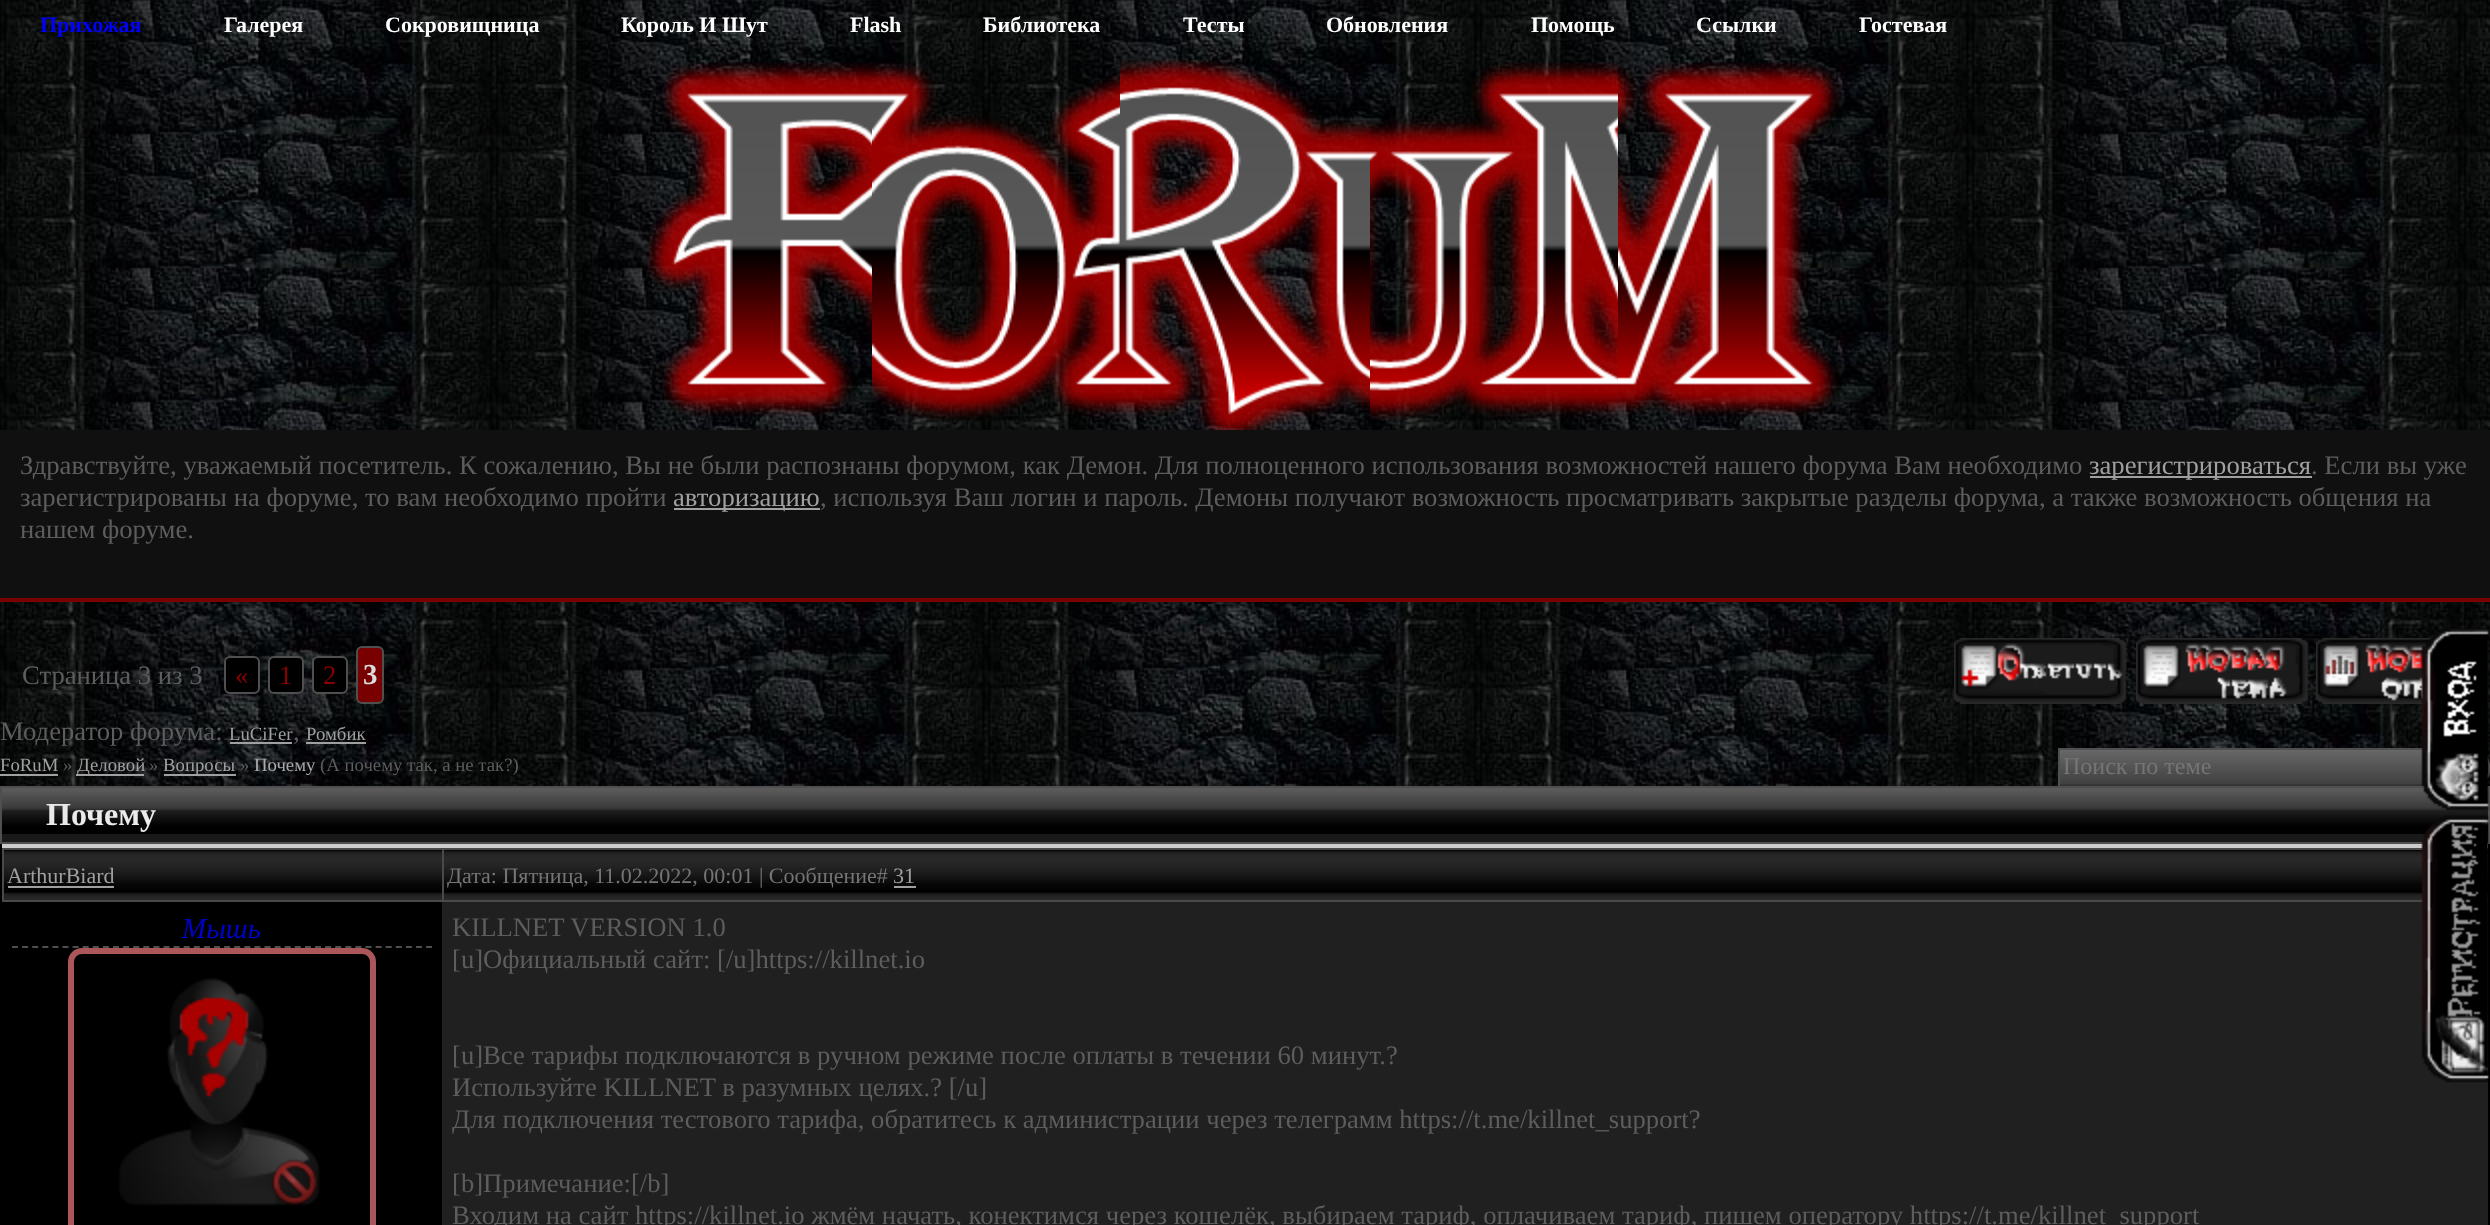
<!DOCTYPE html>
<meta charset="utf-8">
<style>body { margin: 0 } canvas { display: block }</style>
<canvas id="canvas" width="2490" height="1225"></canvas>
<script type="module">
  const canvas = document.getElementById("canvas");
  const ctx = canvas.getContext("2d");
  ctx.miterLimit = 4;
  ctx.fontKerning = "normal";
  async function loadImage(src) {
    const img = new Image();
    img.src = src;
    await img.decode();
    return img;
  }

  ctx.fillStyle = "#ffffff";
  ctx.fillRect(0, 0, 2490, 1225);
  ctx.drawImage(await loadImage("img1.png"), 0, 0, 2490, 786);
  ctx.font = "bold 22px Liberation Serif";
  ctx.fillStyle = "#0000ff";
  ctx.fillText("Прихожая", 40, 32);
  ctx.fillStyle = "#ffffff";
  ctx.fillText("Галерея", 224, 32);
  ctx.fillText("Сокровищница", 385, 32);
  ctx.fillText("Король И Шут", 621, 32);
  ctx.fillText("Flash", 850, 32);
  ctx.fillText("Библиотека", 983, 32);
  ctx.fillText("Тесты", 1183, 32);
  ctx.fillText("Обновления", 1326, 32);
  ctx.fillText("Помощь", 1531, 32);
  ctx.fillText("Ссылки", 1696, 32);
  ctx.fillText("Гостевая", 1859, 32);
  ctx.drawImage(await loadImage("img2.png"), 645, 62, 227, 355);
  ctx.drawImage(await loadImage("img3.png"), 872, 62, 248, 358);
  ctx.drawImage(await loadImage("img4.png"), 1120, 60, 250, 370);
  ctx.drawImage(await loadImage("img5.png"), 1370, 62, 248, 359);
  ctx.drawImage(await loadImage("img6.png"), 1618, 62, 223, 355);
  ctx.fillStyle = "#7a0000";
  ctx.fillRect(0, 598, 2490, 4);
  ctx.fillStyle = "#101010";
  ctx.fillRect(0, 430, 2490, 168);
  ctx.font = "26.67px Liberation Serif";
  ctx.fillStyle = "#5d5d5d";
  ctx.fillText("Здравствуйте, уважаемый посетитель. К сожалению, Вы не были распознаны форумом, как Демон. Для полноценного использования возможностей нашего форума Вам необходимо", 20, 474);
  ctx.fillStyle = "#a0a0a0";
  ctx.fillRect(2090, 476, 222, 2);
  ctx.fillText("зарегистрироваться", 2089, 474);
  ctx.fillStyle = "#5d5d5d";
  ctx.fillText(". Если вы уже", 2311, 474);
  ctx.fillText("зарегистрированы на форуме, то вам необходимо пройти", 20, 506);
  ctx.fillStyle = "#a0a0a0";
  ctx.fillRect(674, 508, 146, 2);
  ctx.fillText("авторизацию", 673, 506);
  ctx.fillStyle = "#5d5d5d";
  ctx.fillText(", используя Ваш логин и пароль. Демоны получают возможность просматривать закрытые разделы форума, а также возможность общения на", 820, 506);
  ctx.fillText("нашем форуме.", 20, 538);
  ctx.fillText("Страница 3 из 3", 22, 684);
  ctx.fillStyle = "#000000";
  ctx.beginPath();
  ctx.roundRect(225, 657, 34, 36, 5);
  ctx.fill();
  ctx.strokeStyle = "#4f4f4f";
  ctx.lineWidth = 2;
  ctx.stroke();
  ctx.fillStyle = "#890000";
  ctx.fillText("«", 235, 684);
  ctx.fillStyle = "#000000";
  ctx.beginPath();
  ctx.roundRect(269, 657, 34, 36, 5);
  ctx.fill();
  ctx.stroke();
  ctx.fillStyle = "#890000";
  ctx.fillText("1", 279, 684);
  ctx.fillStyle = "#000000";
  ctx.beginPath();
  ctx.roundRect(313, 657, 34, 36, 5);
  ctx.fill();
  ctx.stroke();
  ctx.fillStyle = "#890000";
  ctx.fillText("2", 323, 684);
  ctx.fillStyle = "#780000";
  ctx.beginPath();
  ctx.roundRect(357, 647, 26, 56, 5);
  ctx.fill();
  ctx.stroke();
  ctx.letterSpacing = "-3px";
  ctx.font = "bold 29px Liberation Serif";
  ctx.fillStyle = "#dcdcdc";
  ctx.fillText("3", 363, 684);
  ctx.drawImage(await loadImage("img7.png"), 1954, 638, 173, 66);
  ctx.drawImage(await loadImage("img8.png"), 2136, 638, 173, 66);
  ctx.drawImage(await loadImage("img9.png"), 2316, 638, 173, 66);
  ctx.letterSpacing = "0px";
  ctx.font = "26.67px Liberation Serif";
  ctx.fillStyle = "#5d5d5d";
  ctx.fillText("Модератор форума:", 0, 740);
  ctx.font = "18.75px Liberation Serif";
  ctx.fillStyle = "#a0a0a0";
  ctx.fillText("LuCiFer", 229, 740);
  ctx.font = "26.67px Liberation Serif";
  ctx.fillStyle = "#5d5d5d";
  ctx.fillText(",", 293, 740);
  ctx.fillStyle = "#a0a0a0";
  ctx.fillRect(230, 742, 62, 2);
  ctx.fillRect(306, 742, 60, 2);
  ctx.font = "18.75px Liberation Serif";
  ctx.fillText("Ромбик", 306, 740);
  ctx.fillText("FoRuM", 0, 771);
  ctx.fillRect(0, 774, 58, 2);
  ctx.fillStyle = "#5d5d5d";
  ctx.fillText("»", 63, 771);
  ctx.fillStyle = "#a0a0a0";
  ctx.fillRect(76, 774, 68, 2);
  ctx.fillText("Деловой", 77, 771);
  ctx.fillStyle = "#5d5d5d";
  ctx.fillText("»", 149, 771);
  ctx.fillStyle = "#a0a0a0";
  ctx.fillRect(164, 774, 72, 2);
  ctx.fillText("Вопросы", 163, 771);
  ctx.fillStyle = "#5d5d5d";
  ctx.fillText("»", 240, 771);
  ctx.fillStyle = "#ababab";
  ctx.fillText("Почему", 254, 771);
  ctx.fillStyle = "#5d5d5d";
  ctx.fillText("(А почему так, а не так?)", 320, 771);
  ctx.drawImage(await loadImage("img10.png"), 2060, 750, 363, 34);
  ctx.fillStyle = "#4f4f4f";
  ctx.fillRect(2058, 748, 372, 2);
  ctx.fillStyle = "#353535";
  ctx.fillRect(2058, 784, 372, 2);
  ctx.fillStyle = "#4f4f4f";
  ctx.fillRect(2058, 748, 2, 38);
  ctx.font = "24px Liberation Serif";
  ctx.fillStyle = "#757575";
  ctx.fillText("Поиск по теме", 2063, 774);
  ctx.beginPath();
  ctx.roundRect(2441, 755, 48, 26, 9);
  ctx.stroke();
  ctx.fillStyle = "#000000";
  ctx.fillRect(0, 844, 2490, 381);
  ctx.fillStyle = "#191919";
  ctx.fillRect(2, 834, 2486, 8);
  ctx.drawImage(await loadImage("img11.png"), 2, 788, 2486, 46);
  ctx.fillStyle = "#4f4f4f";
  ctx.fillRect(0, 786, 2490, 2);
  ctx.fillRect(2488, 786, 2, 58);
  ctx.fillRect(0, 842, 2490, 2);
  ctx.fillRect(0, 786, 2, 58);
  ctx.font = "bold 32px Liberation Serif";
  ctx.fillStyle = "#eaeaea";
  ctx.fillText("Почему", 46, 825);
  ctx.fillStyle = "#cccccc";
  ctx.fillRect(2, 844, 2486, 4);
  ctx.drawImage(await loadImage("img12.png"), 4, 850, 438, 50);
  ctx.fillStyle = "#494949";
  ctx.fillRect(442, 848, 2046, 2);
  ctx.fillRect(442, 900, 2046, 2);
  ctx.fillRect(442, 848, 2, 54);
  ctx.fillRect(2, 848, 442, 2);
  ctx.fillRect(2, 900, 442, 2);
  ctx.fillRect(2, 848, 2, 54);
  ctx.font = "22px Liberation Serif";
  ctx.fillStyle = "#a0a0a0";
  ctx.fillText("ArthurBiard", 7, 883);
  ctx.fillRect(8, 886, 106, 2);
  ctx.drawImage(await loadImage("img13.png"), 444, 850, 2044, 50);
  ctx.fillStyle = "#757575";
  ctx.fillText("Дата: Пятница, 11.02.2022, 00:01 | Сообщение#", 447, 883);
  ctx.fillStyle = "#a0a0a0";
  ctx.fillText("31", 893, 883);
  ctx.fillRect(894, 886, 22, 2);
  ctx.beginPath();
  ctx.moveTo(12, 947);
  ctx.lineTo(432, 947);
  ctx.setLineDash([6, 4.1]);
  ctx.stroke();
  ctx.font = "italic 29px Liberation Serif";
  ctx.fillStyle = "#0000cd";
  ctx.fillText("Мышь", 182, 938);
  ctx.beginPath();
  ctx.roundRect(71, 951, 302, 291, 11);
  ctx.strokeStyle = "#ab5658";
  ctx.lineWidth = 6;
  ctx.setLineDash([]);
  ctx.stroke();
  ctx.drawImage(await loadImage("img14.png"), 118, 978, 202, 228);
  ctx.fillStyle = "#202020";
  ctx.fillRect(442, 902, 2046, 323);
  ctx.font = "26.67px Liberation Serif";
  ctx.fillStyle = "#5d5d5d";
  ctx.fillText("KILLNET VERSION 1.0", 452, 936);
  ctx.fillText("[u]Официальный сайт: [/u]https://killnet.io", 452, 968);
  ctx.fillText("[u]Все тарифы подключаются в ручном режиме после оплаты в течении 60 минут.?", 452, 1064);
  ctx.fillText("Используйте KILLNET в разумных целях.? [/u]", 452, 1096);
  ctx.fillText("Для подключения тестового тарифа, обратитесь к администрации через телеграмм https://t.me/killnet_support?", 452, 1128);
  ctx.fillText("[b]Примечание:[/b]", 452, 1192);
  ctx.fillText("Входим на сайт https://killnet.io жмём начать, конектимся через кошелёк, выбираем тариф, оплачиваем тариф, пишем оператору https://t.me/killnet_support", 452, 1224);
  ctx.drawImage(await loadImage("img15.png"), 2421, 627, 68, 184);
  ctx.drawImage(await loadImage("img16.png"), 2421, 815, 68, 268);
</script>
